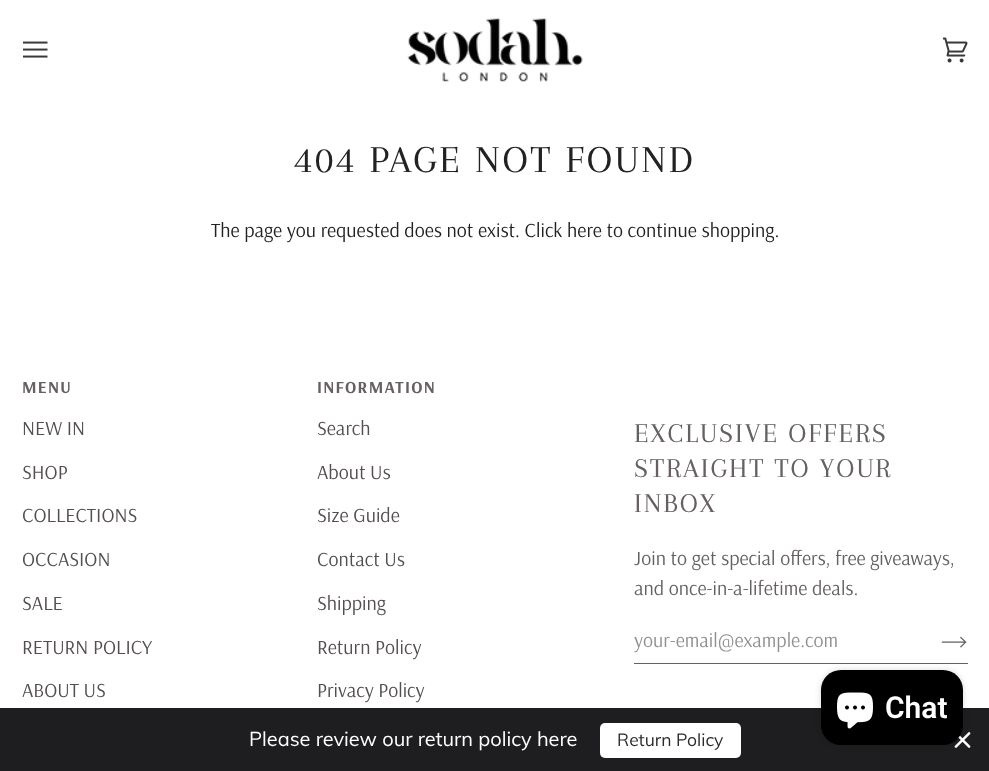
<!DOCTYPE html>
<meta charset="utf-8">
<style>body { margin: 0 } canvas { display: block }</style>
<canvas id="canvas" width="989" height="771"></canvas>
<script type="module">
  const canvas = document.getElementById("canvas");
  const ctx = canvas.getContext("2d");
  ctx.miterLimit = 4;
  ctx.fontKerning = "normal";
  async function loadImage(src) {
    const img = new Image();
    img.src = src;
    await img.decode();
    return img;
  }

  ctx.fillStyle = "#ffffff";
  ctx.fillRect(0, 0, 989, 771);
  ctx.drawImage(await loadImage("img1.png"), 23, 41, 25, 17);
  ctx.drawImage(await loadImage("img2.png"), 407, 18, 176, 64);
  ctx.drawImage(await loadImage("img3.png"), 943, 37, 25, 26);
  ctx.letterSpacing = "2.75px";
  ctx.font = "39.4px Arapey";
  ctx.fillStyle = "#222222";
  ctx.fillText("404 PAGE NOT FOUND", 294, 172);
  ctx.letterSpacing = "0px";
  ctx.font = "20px Arsenal";
  ctx.fillText("The page you requested does not exist. Click here to continue shopping.", 211, 237);
  ctx.letterSpacing = "1.25px";
  ctx.font = "bold 17px Arsenal";
  ctx.fillStyle = "#666060";
  ctx.fillText("MENU", 22, 393);
  ctx.letterSpacing = "0px";
  ctx.font = "20px Arsenal";
  ctx.fillStyle = "#554e4e";
  ctx.fillText("NEW IN", 22, 435);
  ctx.fillText("SHOP", 22, 479);
  ctx.fillText("COLLECTIONS", 22, 522);
  ctx.fillText("OCCASION", 22, 566);
  ctx.fillText("SALE", 22, 610);
  ctx.fillText("RETURN POLICY", 22, 654);
  ctx.fillText("ABOUT US", 22, 697);
  ctx.letterSpacing = "1.25px";
  ctx.font = "bold 17px Arsenal";
  ctx.fillStyle = "#666060";
  ctx.fillText("INFORMATION", 317, 393);
  ctx.letterSpacing = "0px";
  ctx.font = "20px Arsenal";
  ctx.fillStyle = "#554e4e";
  ctx.fillText("Search", 317, 435);
  ctx.fillText("About Us", 317, 479);
  ctx.fillText("Size Guide", 317, 522);
  ctx.fillText("Contact Us", 317, 566);
  ctx.fillText("Shipping", 317, 610);
  ctx.fillText("Return Policy", 317, 654);
  ctx.fillText("Privacy Policy", 317, 697);
  ctx.letterSpacing = "2px";
  ctx.font = "28.1px Arapey";
  ctx.fillStyle = "#666060";
  ctx.fillText("EXCLUSIVE OFFERS", 634, 442);
  ctx.fillText("STRAIGHT TO YOUR", 634, 477);
  ctx.fillText("INBOX", 634, 512);
  ctx.letterSpacing = "0px";
  ctx.font = "20px Arsenal";
  ctx.fillText("Join to get special offers, free giveaways,", 634, 565);
  ctx.fillText("and once-in-a-lifetime deals.", 634, 595);
  ctx.fillRect(634, 663, 334, 1);
  ctx.fillStyle = "#948f8f";
  ctx.fillText("your-email@example.com", 634, 647);
  ctx.drawImage(await loadImage("img4.png"), 941, 636, 26, 12);
  ctx.fillStyle = "#1e1e20";
  ctx.fillRect(0, 708, 989, 63);
  ctx.drawImage(await loadImage("img6.png"), 954, 732, 17, 16);
  ctx.fillStyle = "rgba(0, 0, 0, 0.15)";
  ctx.filter = "blur(3px)";
  ctx.beginPath();
  ctx.roundRect(821, 670, 142, 75, 20);
  ctx.fill();
  ctx.filter = "none";
  ctx.fillStyle = "#000000";
  ctx.beginPath();
  ctx.roundRect(821, 670, 142, 75, 20);
  ctx.fill();
  ctx.drawImage(await loadImage("img5.png"), 837, 692, 36, 37);
  ctx.font = "600 30px Roboto";
  ctx.fillStyle = "#ffffff";
  ctx.fillText("Chat", 885, 718);
  ctx.font = "20px Muli";
  ctx.fillText("Please review our return policy here", 249, 746);
  ctx.beginPath();
  ctx.roundRect(600, 723, 141, 35, 5);
  ctx.fill();
  ctx.font = "17.5px Muli";
  ctx.fillStyle = "#2a2c2b";
  ctx.fillText("Return Policy", 617, 746);
</script>
